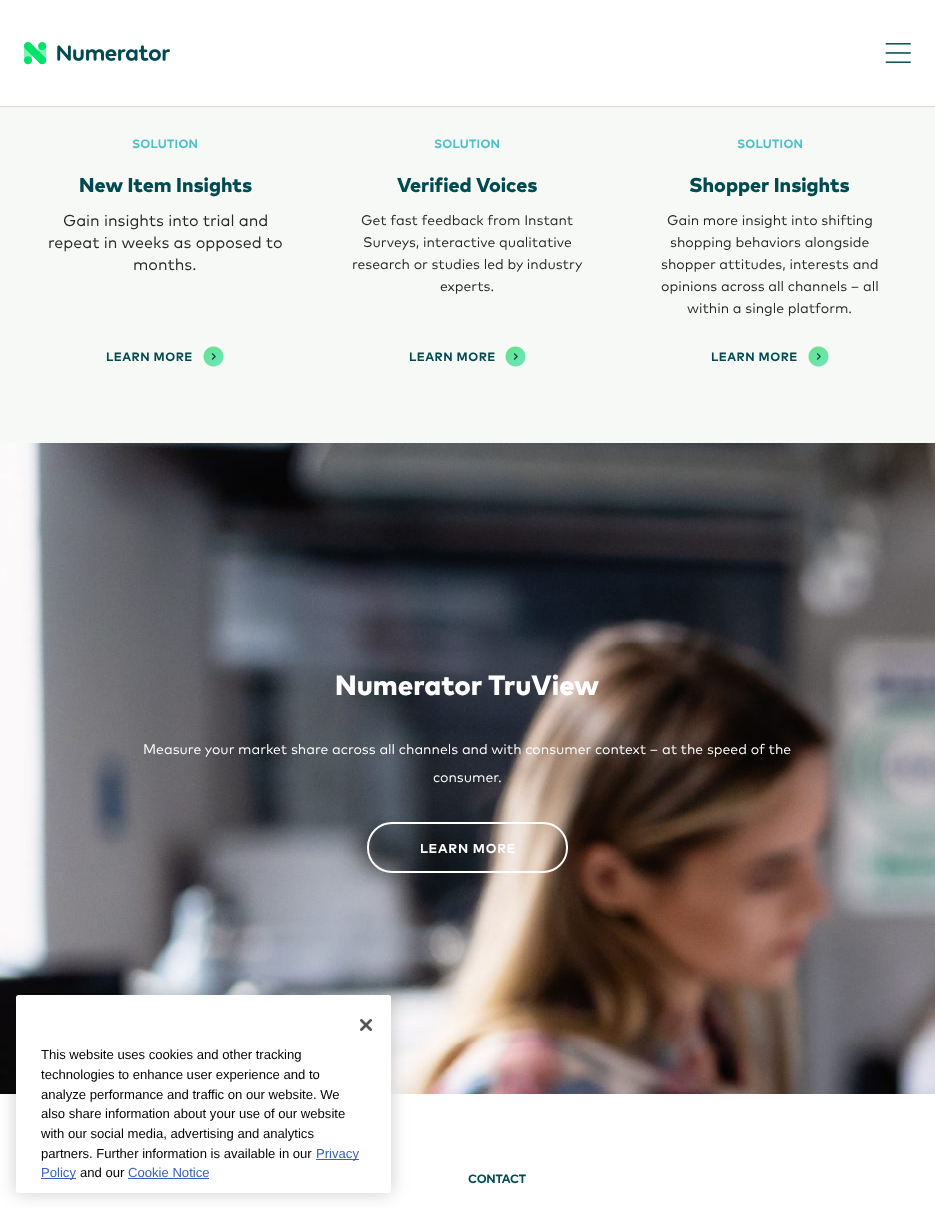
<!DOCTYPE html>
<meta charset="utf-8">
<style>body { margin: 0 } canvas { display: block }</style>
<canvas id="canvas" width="935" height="1209"></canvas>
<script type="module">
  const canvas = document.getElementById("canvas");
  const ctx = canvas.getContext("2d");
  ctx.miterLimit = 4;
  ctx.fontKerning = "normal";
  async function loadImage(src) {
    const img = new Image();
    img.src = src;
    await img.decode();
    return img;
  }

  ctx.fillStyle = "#ffffff";
  ctx.fillRect(0, 0, 935, 1209);
  ctx.fillStyle = "#f6f9f5";
  ctx.fillRect(0, 106, 935, 337);
  ctx.fillStyle = "#d7d7d7";
  ctx.filter = "blur(0.5px)";
  ctx.beginPath();
  ctx.rect(0, 1, 935, 106);
  ctx.fill();
  ctx.filter = "none";
  ctx.fillStyle = "#ffffff";
  ctx.fillRect(0, 0, 935, 106);
  ctx.drawImage(await loadImage("img1.png"), 24, 42, 146, 23);
  ctx.drawImage(await loadImage("img2.png"), 885, 43, 26, 20);
  ctx.letterSpacing = "0.25px";
  ctx.font = "bold 12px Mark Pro";
  ctx.fillStyle = "#4ac0ca";
  ctx.fillText("SOLUTION", 132, 148);
  ctx.letterSpacing = "0px";
  ctx.font = "900 20px Mark Pro";
  ctx.fillStyle = "#004a52";
  ctx.fillText("New Item Insights", 79, 192);
  ctx.font = "16px Mark Pro";
  ctx.fillStyle = "#252525";
  ctx.fillText("Gain insights into trial and", 63, 226);
  ctx.fillText("repeat in weeks as opposed to", 48, 248);
  ctx.fillText("months.", 133, 270);
  ctx.drawImage(await loadImage("img3.png"), 203, 346, 21, 21);
  ctx.letterSpacing = "0.5px";
  ctx.font = "bold 12px Mark Pro";
  ctx.fillStyle = "#004a52";
  ctx.fillText("LEARN MORE", 106, 361);
  ctx.letterSpacing = "0.25px";
  ctx.fillStyle = "#4ac0ca";
  ctx.fillText("SOLUTION", 434, 148);
  ctx.letterSpacing = "0px";
  ctx.font = "900 20px Mark Pro";
  ctx.fillStyle = "#004a52";
  ctx.fillText("Verified Voices", 397, 192);
  ctx.font = "14px Mark Pro";
  ctx.fillStyle = "#252525";
  ctx.fillText("Get fast feedback from Instant", 361, 225);
  ctx.fillText("Surveys, interactive qualitative", 363, 247);
  ctx.fillText("research or studies led by industry", 352, 269);
  ctx.fillText("experts.", 440, 291);
  ctx.drawImage(await loadImage("img3.png"), 505, 346, 21, 21);
  ctx.letterSpacing = "0.5px";
  ctx.font = "bold 12px Mark Pro";
  ctx.fillStyle = "#004a52";
  ctx.fillText("LEARN MORE", 409, 361);
  ctx.letterSpacing = "0.25px";
  ctx.fillStyle = "#4ac0ca";
  ctx.fillText("SOLUTION", 737, 148);
  ctx.letterSpacing = "0px";
  ctx.font = "900 20px Mark Pro";
  ctx.fillStyle = "#004a52";
  ctx.fillText("Shopper Insights", 689, 192);
  ctx.font = "14px Mark Pro";
  ctx.fillStyle = "#252525";
  ctx.fillText("Gain more insight into shifting", 667, 225);
  ctx.fillText("shopping behaviors alongside", 670, 247);
  ctx.fillText("shopper attitudes, interests and", 661, 269);
  ctx.fillText("opinions across all channels – all", 661, 291);
  ctx.fillText("within a single platform.", 687, 313);
  ctx.drawImage(await loadImage("img3.png"), 808, 346, 21, 21);
  ctx.letterSpacing = "0.5px";
  ctx.font = "bold 12px Mark Pro";
  ctx.fillStyle = "#004a52";
  ctx.fillText("LEARN MORE", 711, 361);
  ctx.drawImage(await loadImage("img4.png"), 0, 443, 935, 651);
  ctx.letterSpacing = "0px";
  ctx.font = "900 28px Mark Pro";
  ctx.fillStyle = "#ffffff";
  ctx.fillText("Numerator TruView", 335, 695);
  ctx.font = "14px Mark Pro";
  ctx.fillText("Measure your market share across all channels and with consumer context – at the speed of the", 143, 754);
  ctx.fillText("consumer.", 433, 782);
  ctx.beginPath();
  ctx.roundRect(368, 823, 199, 49, 24);
  ctx.strokeStyle = "#ffffff";
  ctx.lineWidth = 2;
  ctx.stroke();
  ctx.letterSpacing = "0.75px";
  ctx.font = "bold 13px Mark Pro";
  ctx.fillText("LEARN MORE", 420, 853);
  ctx.letterSpacing = "-0.25px";
  ctx.font = "bold 12px Mark Pro";
  ctx.fillStyle = "#004a52";
  ctx.fillText("CONTACT", 468, 1183);
  ctx.fillStyle = "rgba(0, 0, 0, 0.2)";
  ctx.filter = "blur(9px)";
  ctx.beginPath();
  ctx.roundRect(16, 995, 375, 198, 2.5);
  ctx.fill();
  ctx.filter = "none";
  ctx.fillStyle = "#ffffff";
  ctx.beginPath();
  ctx.roundRect(16, 995, 375, 198, 2.5);
  ctx.fill();
  ctx.drawImage(await loadImage("img5.png"), 360, 1019, 12, 12);
  ctx.letterSpacing = "0px";
  ctx.font = "13.1px Liberation Sans";
  ctx.fillStyle = "#000000";
  ctx.fillText("This website uses cookies and other tracking", 41, 1059);
  ctx.fillText("technologies to enhance user experience and to", 41, 1079);
  ctx.fillText("analyze performance and traffic on our website. We", 41, 1099);
  ctx.fillText("also share information about your use of our website", 41, 1118);
  ctx.fillText("with our social media, advertising and analytics", 41, 1138);
  ctx.fillText("partners. Further information is available in our", 41, 1158);
  ctx.fillStyle = "#3860be";
  ctx.fillRect(316, 1159, 43, 1);
  ctx.fillText("Privacy", 316, 1158);
  ctx.fillRect(41, 1178, 35, 1);
  ctx.fillText("Policy", 41, 1177);
  ctx.fillStyle = "#000000";
  ctx.fillText("and our", 80, 1177);
  ctx.fillStyle = "#3860be";
  ctx.fillText("Cookie Notice", 128, 1177);
  ctx.fillRect(128, 1178, 81, 1);
</script>
